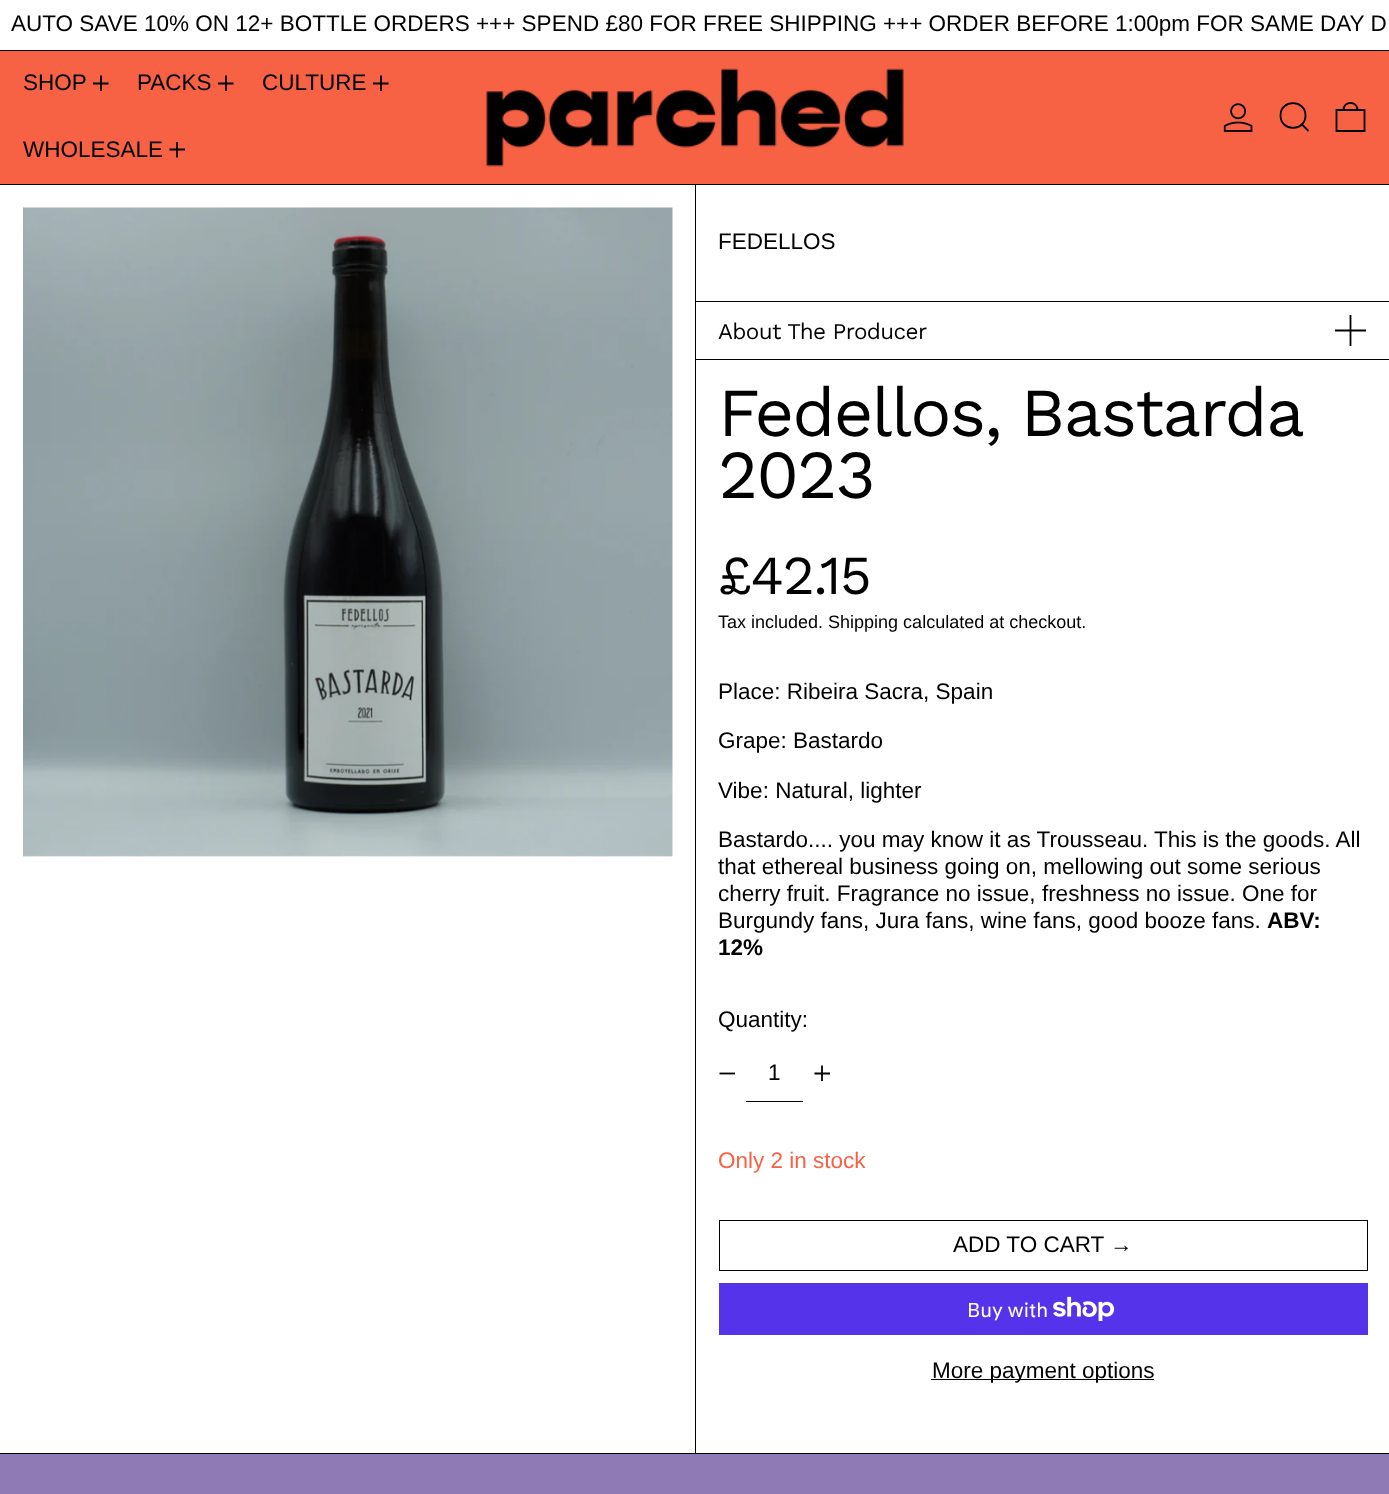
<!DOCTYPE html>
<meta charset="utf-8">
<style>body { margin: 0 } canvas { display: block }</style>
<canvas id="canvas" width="1389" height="1494"></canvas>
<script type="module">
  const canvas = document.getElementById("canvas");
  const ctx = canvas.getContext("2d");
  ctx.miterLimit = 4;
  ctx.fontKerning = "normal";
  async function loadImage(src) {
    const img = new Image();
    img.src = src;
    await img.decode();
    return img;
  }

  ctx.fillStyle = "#ffffff";
  ctx.fillRect(0, 0, 1389, 1494);
  ctx.fillStyle = "#000000";
  ctx.fillRect(0, 50, 1389, 1);
  ctx.font = "22.5px Arimo";
  ctx.fillText("AUTO SAVE 10% ON 12+ BOTTLE ORDERS +++ SPEND £80 FOR FREE SHIPPING +++ ORDER BEFORE 1:00pm FOR SAME DAY D", 11, 31);
  ctx.fillStyle = "#f66243";
  ctx.fillRect(0, 51, 1389, 133);
  ctx.fillStyle = "#000000";
  ctx.fillRect(0, 184, 1389, 1);
  ctx.fillText("SHOP", 23, 90);
  ctx.beginPath();
  ctx.moveTo(101, 75.5);
  ctx.lineTo(101, 91);
  ctx.moveTo(93, 83.5);
  ctx.lineTo(108.5, 83.5);
  ctx.strokeStyle = "#000000";
  ctx.lineWidth = 1.8;
  ctx.stroke();
  ctx.fillText("PACKS", 137, 90);
  ctx.beginPath();
  ctx.moveTo(226, 75.5);
  ctx.lineTo(226, 91);
  ctx.moveTo(218, 83.5);
  ctx.lineTo(233.5, 83.5);
  ctx.stroke();
  ctx.fillText("CULTURE", 262, 90);
  ctx.beginPath();
  ctx.moveTo(381, 75.5);
  ctx.lineTo(381, 91);
  ctx.moveTo(373, 83.5);
  ctx.lineTo(388.5, 83.5);
  ctx.stroke();
  ctx.fillText("WHOLESALE", 23, 157);
  ctx.beginPath();
  ctx.moveTo(177, 142);
  ctx.lineTo(177, 157.5);
  ctx.moveTo(169.5, 149.5);
  ctx.lineTo(185, 149.5);
  ctx.stroke();
  ctx.drawImage(await loadImage("img1.png"), 486, 68, 418, 99);
  ctx.drawImage(await loadImage("img2.png"), 1223, 103, 30, 29);
  ctx.beginPath();
  ctx.moveTo(1280.5, 115.5);
  ctx.bezierCurveTo(1280.5, 132, 1305.5, 132, 1305.5, 115.5);
  ctx.bezierCurveTo(1305.5, 99, 1280.5, 99, 1280.5, 115.5);
  ctx.closePath();
  ctx.moveTo(1302, 124.5);
  ctx.lineTo(1308.5, 131);
  ctx.stroke();
  ctx.beginPath();
  ctx.moveTo(1336.5, 110);
  ctx.lineTo(1364.5, 110);
  ctx.lineTo(1364.5, 131);
  ctx.lineTo(1336.5, 131);
  ctx.closePath();
  ctx.moveTo(1357.5, 110);
  ctx.bezierCurveTo(1357.5, 100.5, 1343.5, 100.5, 1343.5, 110);
  ctx.stroke();
  ctx.fillRect(695, 185, 1, 1268);
  ctx.fillRect(0, 1453, 1389, 1);
  ctx.drawImage(await loadImage("img3.png"), 23, 207, 650, 650);
  ctx.fillText("FEDELLOS", 718, 249);
  ctx.fillRect(696, 301, 693, 1);
  ctx.fillRect(696, 359, 693, 1);
  ctx.letterSpacing = "-0.6px";
  ctx.font = "22.5px Work Sans";
  ctx.fillText("About The Producer", 718, 339);
  ctx.beginPath();
  ctx.moveTo(1350.5, 315);
  ctx.lineTo(1350.5, 346);
  ctx.moveTo(1335, 330.5);
  ctx.lineTo(1366, 330.5);
  ctx.stroke();
  ctx.letterSpacing = "-1.75px";
  ctx.wordSpacing = "-2px";
  ctx.font = "68.75px Work Sans";
  ctx.fillText("Fedellos, Bastarda", 718, 436);
  ctx.wordSpacing = "0px";
  ctx.fillText("2023", 718, 498);
  ctx.letterSpacing = "-1.5px";
  ctx.font = "55px Work Sans";
  ctx.fillText("£42.15", 718, 594);
  ctx.letterSpacing = "0px";
  ctx.font = "18px Arimo";
  ctx.fillText("Tax included. Shipping calculated at checkout.", 718, 628);
  ctx.font = "22.5px Arimo";
  ctx.fillText("Place: Ribeira Sacra, Spain", 718, 699);
  ctx.fillText("Grape: Bastardo", 718, 748);
  ctx.fillText("Vibe: Natural, lighter", 718, 798);
  ctx.fillText("Bastardo.... you may know it as Trousseau. This is the goods. All", 718, 847);
  ctx.fillText("that ethereal business going on, mellowing out some serious", 718, 874);
  ctx.fillText("cherry fruit. Fragrance no issue, freshness no issue. One for", 718, 901);
  ctx.fillText("Burgundy fans, Jura fans, wine fans, good booze fans.", 718, 928);
  ctx.font = "bold 22.5px Arimo";
  ctx.fillText("ABV:", 1267, 928);
  ctx.fillText("12%", 718, 955);
  ctx.font = "22.5px Arimo";
  ctx.fillText("Quantity:", 718, 1027);
  ctx.beginPath();
  ctx.moveTo(719.5, 1073.5);
  ctx.lineTo(735, 1073.5);
  ctx.stroke();
  ctx.fillRect(746, 1101, 57, 1);
  ctx.fillText("1", 768, 1080);
  ctx.beginPath();
  ctx.moveTo(822, 1065.5);
  ctx.lineTo(822, 1081);
  ctx.moveTo(814.5, 1073.5);
  ctx.lineTo(830, 1073.5);
  ctx.stroke();
  ctx.fillStyle = "#f66243";
  ctx.fillText("Only 2 in stock", 718, 1168);
  ctx.lineWidth = 1;
  ctx.strokeRect(719.5, 1220.5, 648, 50);
  ctx.fillStyle = "#000000";
  ctx.fillText("ADD TO CART", 953, 1252);
  ctx.font = "22.5px Liberation Sans";
  ctx.fillText("→", 1110, 1252);
  ctx.fillStyle = "#5433eb";
  ctx.fillRect(719, 1283, 649, 52);
  ctx.font = "20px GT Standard";
  ctx.fillStyle = "#ffffff";
  ctx.fillText("Buy with", 967, 1317);
  ctx.drawImage(await loadImage("img4.png"), 1053, 1296, 62, 25);
  ctx.fillStyle = "#000000";
  ctx.fillRect(931, 1379, 223, 1);
  ctx.font = "22.5px Arimo";
  ctx.fillText("More payment options", 932, 1378);
  ctx.fillStyle = "#8f7ab5";
  ctx.fillRect(0, 1454, 1389, 40);
</script>
